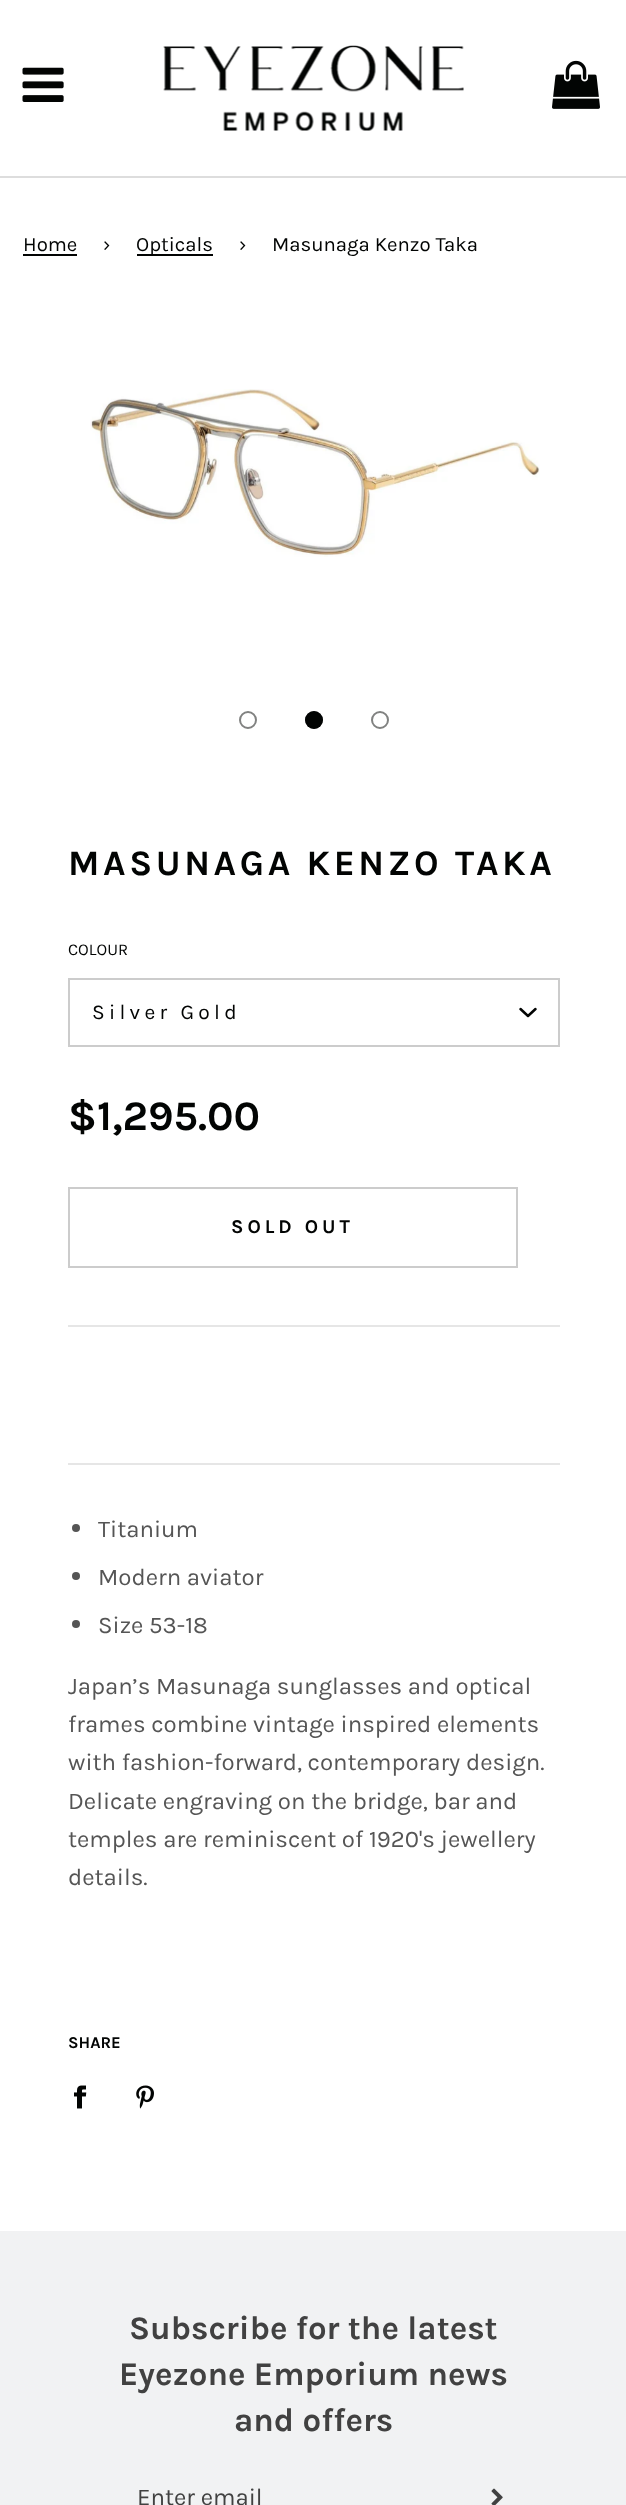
<!DOCTYPE html>
<meta charset="utf-8">
<style>body { margin: 0 } canvas { display: block }</style>
<canvas id="canvas" width="626" height="2505"></canvas>
<script type="module">
  const canvas = document.getElementById("canvas");
  const ctx = canvas.getContext("2d");
  ctx.miterLimit = 4;
  ctx.fontKerning = "normal";
  async function loadImage(src) {
    const img = new Image();
    img.src = src;
    await img.decode();
    return img;
  }

  ctx.fillStyle = "#ffffff";
  ctx.fillRect(0, 0, 626, 2505);
  ctx.fillStyle = "#dddddd";
  ctx.fillRect(0, 176, 626, 2);
  ctx.drawImage(await loadImage("img1.png"), 22, 67, 42, 35);
  ctx.drawImage(await loadImage("img2.png"), 163, 45, 301, 86);
  ctx.drawImage(await loadImage("img3.png"), 552, 60, 48, 49);
  ctx.font = "20.4px Karla";
  ctx.fillStyle = "#020403";
  ctx.fillText("Home", 23, 251);
  ctx.fillRect(23, 254, 54, 2);
  ctx.fillText("›", 103, 251);
  ctx.fillRect(137, 254, 76, 2);
  ctx.fillText("Opticals", 136, 251);
  ctx.fillText("›", 239, 251);
  ctx.fillText("Masunaga Kenzo Taka", 272, 251);
  ctx.drawImage(await loadImage("img4.png"), 90, 389, 450, 168);
  ctx.beginPath();
  ctx.arc(248, 720, 8, 0, Math.PI * 2);
  ctx.strokeStyle = "#818281";
  ctx.lineWidth = 2;
  ctx.stroke();
  ctx.beginPath();
  ctx.arc(314, 720, 9, 0, Math.PI * 2);
  ctx.fill();
  ctx.beginPath();
  ctx.arc(314, 720, 8, 0, Math.PI * 2);
  ctx.strokeStyle = "rgba(2, 4, 3, 0.5)";
  ctx.stroke();
  ctx.beginPath();
  ctx.arc(380, 720, 8, 0, Math.PI * 2);
  ctx.strokeStyle = "#818281";
  ctx.stroke();
  ctx.letterSpacing = "3.6px";
  ctx.font = "bold 36px Karla";
  ctx.fillText("MASUNAGA KENZO TAKA", 68, 875);
  ctx.letterSpacing = "0px";
  ctx.font = "16.5px Karla";
  ctx.fillText("COLOUR", 68, 955);
  ctx.strokeStyle = "#cccccc";
  ctx.strokeRect(69, 979, 490, 67);
  ctx.letterSpacing = "4.25px";
  ctx.font = "21px Karla";
  ctx.fillText("Silver Gold", 92, 1019);
  ctx.beginPath();
  ctx.moveTo(520.5, 1009);
  ctx.lineTo(528, 1016);
  ctx.lineTo(535.5, 1009);
  ctx.strokeStyle = "#020403";
  ctx.lineWidth = 2.5;
  ctx.lineCap = "round";
  ctx.lineJoin = "round";
  ctx.stroke();
  ctx.letterSpacing = "0px";
  ctx.font = "bold 42px Karla";
  ctx.fillText("$1,295.00", 68, 1130);
  ctx.strokeStyle = "#cccccc";
  ctx.lineWidth = 2;
  ctx.lineJoin = "miter";
  ctx.strokeRect(69, 1188, 448, 79);
  ctx.letterSpacing = "4px";
  ctx.font = "bold 19.5px Karla";
  ctx.fillText("SOLD OUT", 231, 1233);
  ctx.fillStyle = "#e6e6e6";
  ctx.fillRect(68, 1325, 492, 2);
  ctx.fillRect(68, 1463, 492, 2);
  ctx.fillStyle = "#555555";
  ctx.beginPath();
  ctx.arc(76, 1528, 4, 0, Math.PI * 2);
  ctx.fill();
  ctx.letterSpacing = "0px";
  ctx.font = "24px Karla";
  ctx.fillText("Titanium", 98, 1537);
  ctx.beginPath();
  ctx.arc(76, 1576, 4, 0, Math.PI * 2);
  ctx.fill();
  ctx.fillText("Modern aviator", 98, 1585);
  ctx.beginPath();
  ctx.arc(76, 1624, 4, 0, Math.PI * 2);
  ctx.fill();
  ctx.fillText("Size 53-18", 98, 1633);
  ctx.save();
  ctx.beginPath();
  ctx.rect(68, 1509, 492, 411);
  ctx.clip();
  ctx.fillText("Japan’s Masunaga sunglasses and optical", 68, 1694);
  ctx.restore();
  ctx.fillText("frames combine vintage inspired elements", 68, 1732);
  ctx.fillText("with fashion-forward, contemporary design.", 68, 1770);
  ctx.fillText("Delicate engraving on the bridge, bar and", 68, 1809);
  ctx.fillText("temples are reminiscent of 1920's jewellery", 68, 1847);
  ctx.fillText("details.", 68, 1885);
  ctx.font = "bold 16.5px Karla";
  ctx.fillStyle = "#020403";
  ctx.fillText("SHARE", 68, 2048);
  ctx.drawImage(await loadImage("img5.png"), 74, 2085, 13, 24);
  ctx.drawImage(await loadImage("img6.png"), 136, 2085, 18, 24);
  ctx.fillStyle = "#f1f2f3";
  ctx.fillRect(0, 2231, 626, 274);
  ctx.font = "bold 33px Karla";
  ctx.fillStyle = "#414141";
  ctx.fillText("Subscribe for the latest", 129, 2339);
  ctx.fillText("Eyezone Emporium news", 119, 2385);
  ctx.fillText("and offers", 234, 2431);
  ctx.font = "24px Karla";
  ctx.fillText("Enter email", 137, 2505);
  ctx.drawImage(await loadImage("img7.png"), 491, 2488, 12, 17);
</script>
